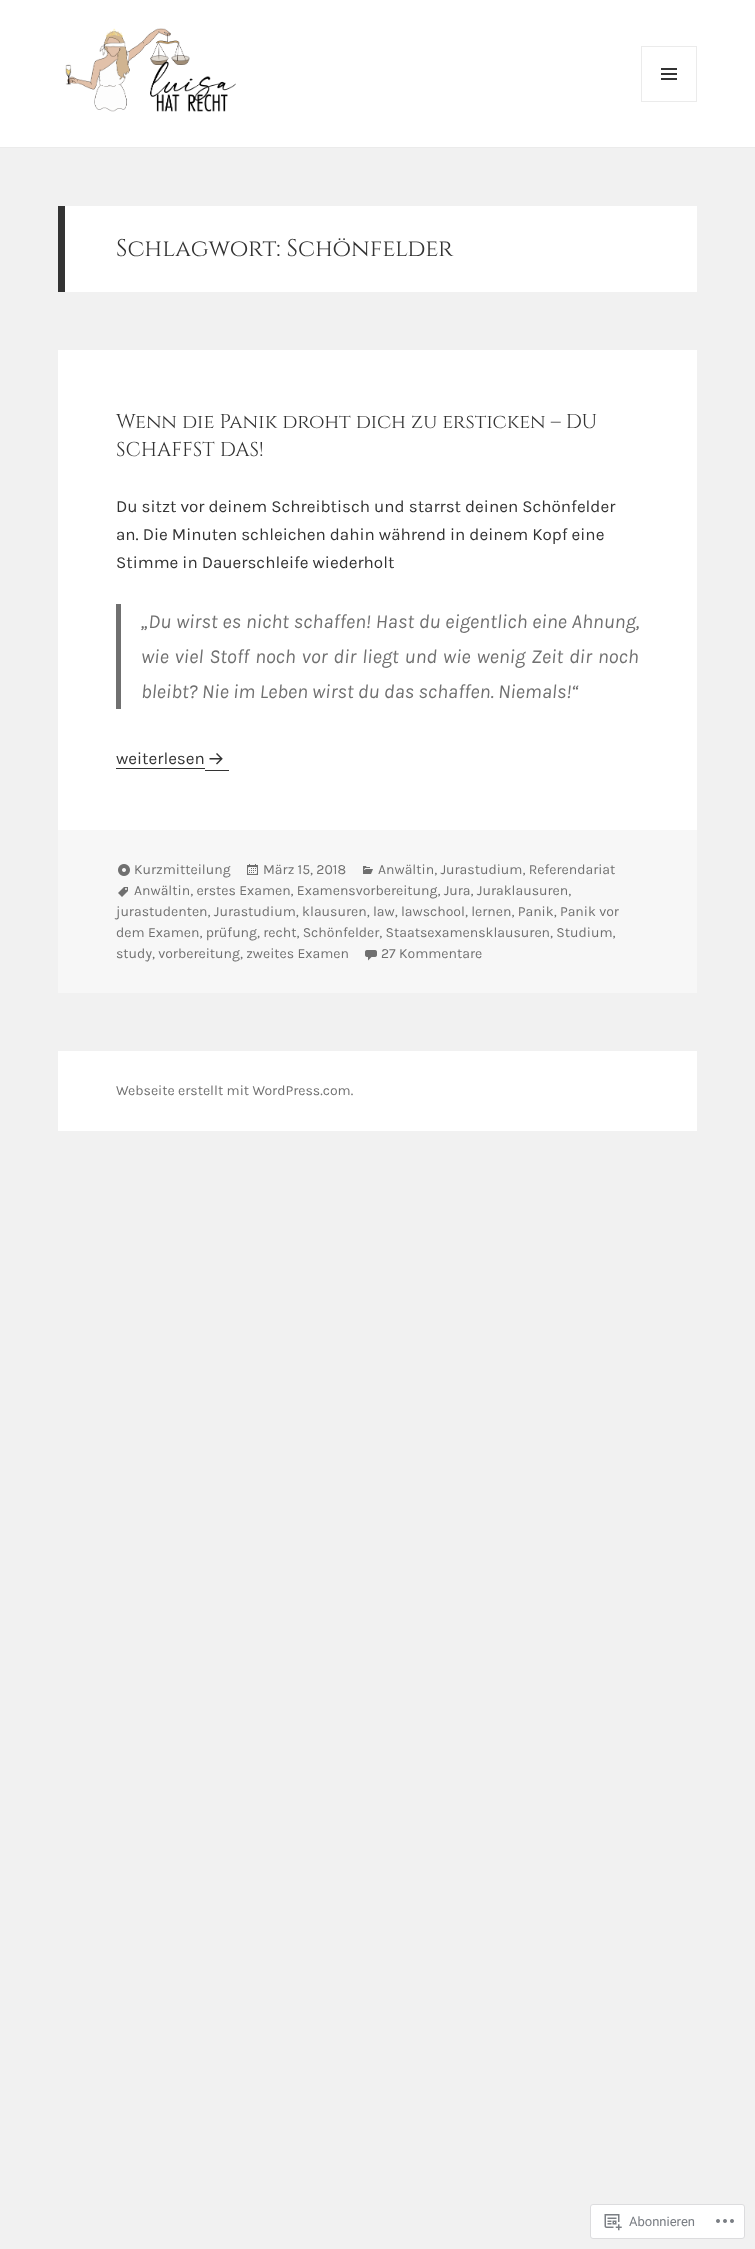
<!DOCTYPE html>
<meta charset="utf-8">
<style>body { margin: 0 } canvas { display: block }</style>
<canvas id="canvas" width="755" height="2249"></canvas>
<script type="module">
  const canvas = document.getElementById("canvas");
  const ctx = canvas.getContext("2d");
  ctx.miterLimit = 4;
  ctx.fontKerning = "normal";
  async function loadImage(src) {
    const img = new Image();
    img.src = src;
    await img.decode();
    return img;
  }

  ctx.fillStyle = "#f1f1f1";
  ctx.fillRect(0, 0, 755, 2249);
  ctx.fillStyle = "#ffffff";
  ctx.fillRect(0, 0, 755, 147);
  ctx.fillStyle = "#ebebeb";
  ctx.fillRect(0, 147, 755, 1);
  ctx.drawImage(await loadImage("img1.png"), 65, 28, 171, 84);
  ctx.strokeStyle = "#ebebeb";
  ctx.strokeRect(641.5, 46.5, 55, 55);
  ctx.drawImage(await loadImage("img2.png"), 661, 68, 16, 12);
  ctx.fillStyle = "#ffffff";
  ctx.fillRect(65, 206, 632, 86);
  ctx.fillStyle = "#333333";
  ctx.fillRect(58, 206, 7, 86);
  ctx.font = "24px Cinzel";
  ctx.fillText("Schlagwort: Schönfelder", 116, 256);
  ctx.fillStyle = "#ffffff";
  ctx.fillRect(58, 350, 639, 480);
  ctx.font = "20px Cinzel";
  ctx.fillStyle = "#333333";
  ctx.fillText("Wenn die Panik droht dich zu ersticken – DU", 116, 428);
  ctx.fillText("SCHAFFST DAS!", 116, 456);
  ctx.font = "17px Karla";
  ctx.fillText("Du sitzt vor deinem Schreibtisch und starrst deinen Schönfelder", 116, 512);
  ctx.fillText("an. Die Minuten schleichen dahin während in deinem Kopf eine", 116, 540);
  ctx.fillText("Stimme in Dauerschleife wiederholt", 116, 568);
  ctx.fillStyle = "#707070";
  ctx.fillRect(116, 604, 5, 105);
  ctx.wordSpacing = "0.5px";
  ctx.font = "italic 20px Karla";
  ctx.fillText("„Du wirst es nicht schaffen! Hast du eigentlich eine Ahnung,", 141, 628);
  ctx.wordSpacing = "1.6px";
  ctx.fillText("wie viel Stoff noch vor dir liegt und wie wenig Zeit dir noch", 141, 663);
  ctx.wordSpacing = "0px";
  ctx.fillText("bleibt? Nie im Leben wirst du das schaffen. Niemals!“", 141, 698);
  ctx.fillStyle = "#333333";
  ctx.fillRect(116, 768, 89, 1);
  ctx.fillRect(205, 770, 24, 1);
  ctx.font = "17px Karla";
  ctx.fillText("weiterlesen", 116, 764);
  ctx.drawImage(await loadImage("img3.png"), 209, 753, 14, 12);
  ctx.fillStyle = "#f7f7f7";
  ctx.fillRect(58, 830, 639, 163);
  ctx.drawImage(await loadImage("img4.png"), 118, 864, 12, 12);
  ctx.font = "14px Karla";
  ctx.fillStyle = "#707070";
  ctx.fillText("Kurzmitteilung", 134, 874);
  ctx.drawImage(await loadImage("img5.png"), 247, 864, 11, 11);
  ctx.fillText("März 15, 2018", 263, 874);
  ctx.drawImage(await loadImage("img6.png"), 363, 866, 10, 8);
  ctx.fillText("Anwältin, Jurastudium, Referendariat", 378, 874);
  ctx.drawImage(await loadImage("img7.png"), 118, 887, 10, 10);
  ctx.fillText("Anwältin, erstes Examen, Examensvorbereitung, Jura, Juraklausuren,", 134, 895);
  ctx.fillText("jurastudenten, Jurastudium, klausuren, law, lawschool, lernen, Panik, Panik vor", 116, 916);
  ctx.fillText("dem Examen, prüfung, recht, Schönfelder, Staatsexamensklausuren, Studium,", 116, 937);
  ctx.fillText("study, vorbereitung, zweites Examen", 116, 958);
  ctx.drawImage(await loadImage("img8.png"), 365, 950, 12, 11);
  ctx.fillText("27 Kommentare", 381, 958);
  ctx.fillStyle = "#ffffff";
  ctx.fillRect(58, 1051, 639, 80);
  ctx.fillStyle = "#707070";
  ctx.fillText("Webseite erstellt mit WordPress.com.", 116, 1095);
  ctx.fillStyle = "#ffffff";
  ctx.beginPath();
  ctx.roundRect(590.5, 2204.5, 154, 34, 2.5);
  ctx.fill();
  ctx.strokeStyle = "#dcdcde";
  ctx.stroke();
  ctx.drawImage(await loadImage("img9.png"), 604, 2214, 18, 17);
  ctx.font = "13px Roboto";
  ctx.fillStyle = "#7a7e84";
  ctx.fillText("Abonnieren", 629, 2226);
  ctx.drawImage(await loadImage("img10.png"), 716, 2219, 18, 4);
</script>
